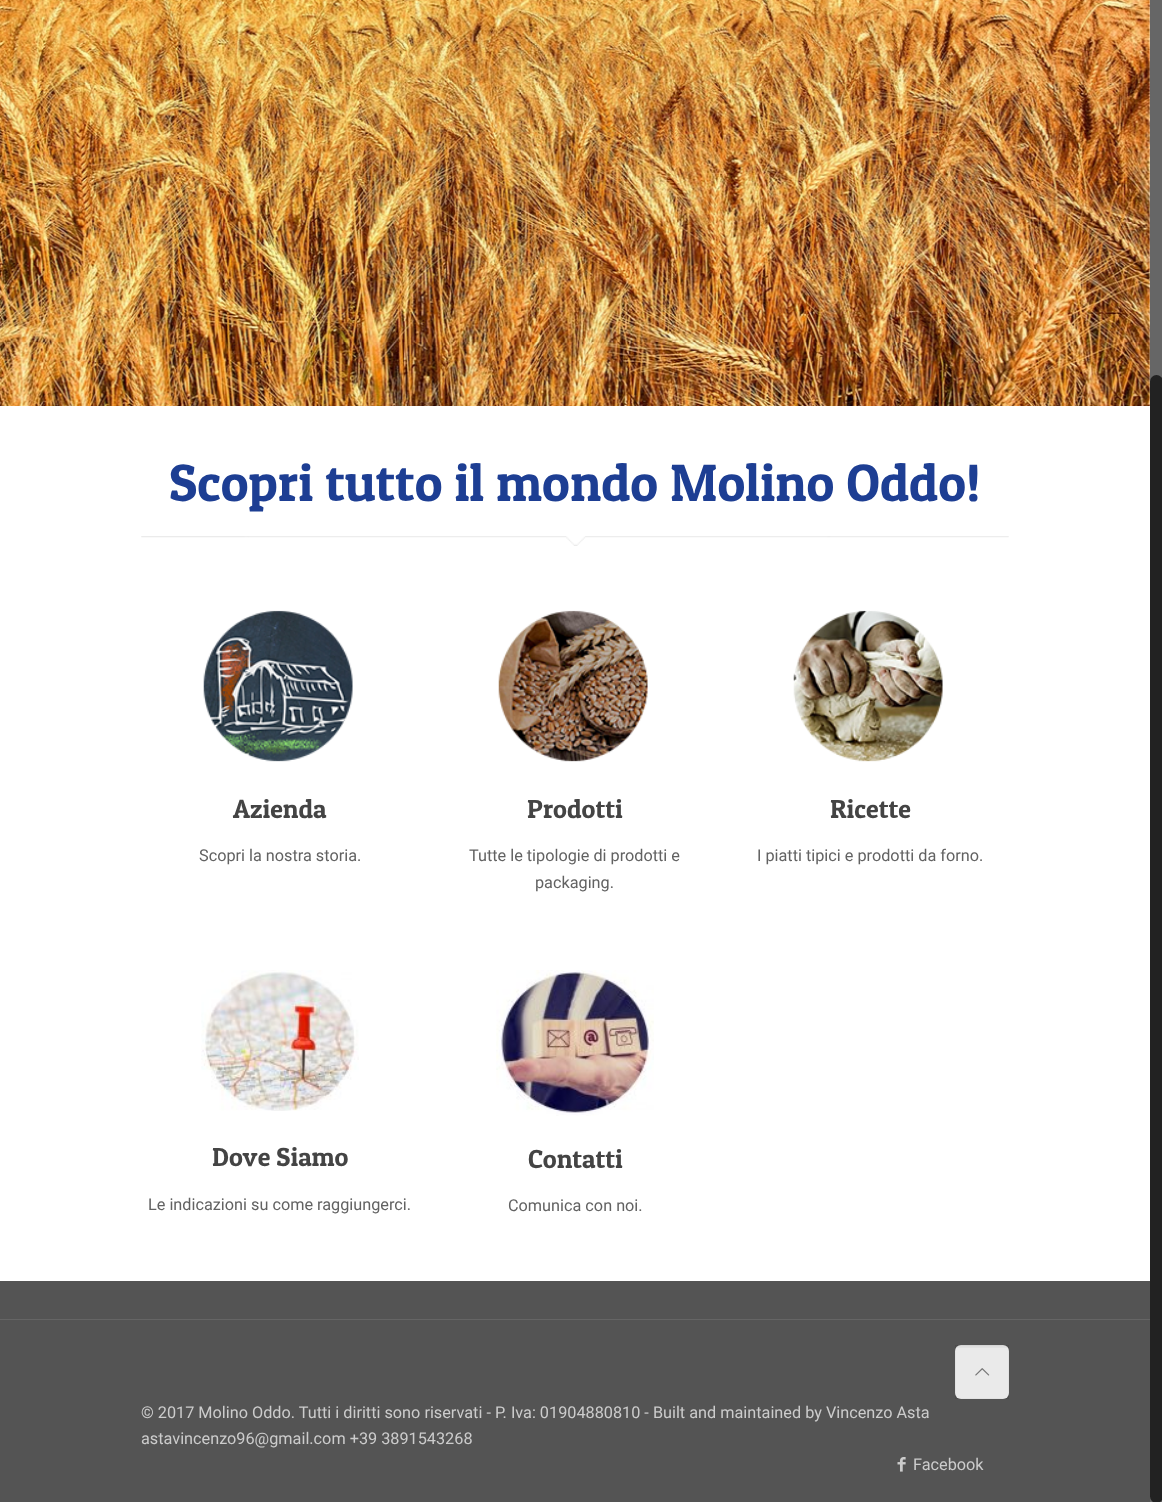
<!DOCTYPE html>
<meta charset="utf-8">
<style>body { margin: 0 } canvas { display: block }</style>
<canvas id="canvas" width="1162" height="1502"></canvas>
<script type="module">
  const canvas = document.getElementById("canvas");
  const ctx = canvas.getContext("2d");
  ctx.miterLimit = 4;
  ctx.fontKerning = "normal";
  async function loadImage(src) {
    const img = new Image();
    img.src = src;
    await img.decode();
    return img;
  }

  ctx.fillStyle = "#ffffff";
  ctx.fillRect(0, 0, 1162, 1502);
  ctx.drawImage(await loadImage("img1.png"), 0, 0, 1150, 406);
  ctx.drawImage(await loadImage("img2.png"), 141, 536, 868, 10);
  ctx.font = "52.5px Patua One";
  ctx.fillStyle = "#1d3e93";
  ctx.fillText("Scopri tutto il mondo Molino Oddo!", 169, 501);
  ctx.drawImage(await loadImage("img3.png"), 203, 610, 150, 152);
  ctx.font = "26.25px Patua One";
  ctx.fillStyle = "#444444";
  ctx.fillText("Azienda", 233, 818);
  ctx.font = "16.25px Roboto";
  ctx.fillStyle = "#626262";
  ctx.fillText("Scopri la nostra storia.", 199, 861);
  ctx.drawImage(await loadImage("img4.png"), 498, 610, 150, 152);
  ctx.font = "26.25px Patua One";
  ctx.fillStyle = "#444444";
  ctx.fillText("Prodotti", 527, 818);
  ctx.font = "16.25px Roboto";
  ctx.fillStyle = "#626262";
  ctx.fillText("Tutte le tipologie di prodotti e", 469, 861);
  ctx.fillText("packaging.", 535, 888);
  ctx.drawImage(await loadImage("img5.png"), 793, 610, 150, 152);
  ctx.font = "26.25px Patua One";
  ctx.fillStyle = "#444444";
  ctx.fillText("Ricette", 830, 818);
  ctx.font = "16.25px Roboto";
  ctx.fillStyle = "#626262";
  ctx.fillText("I piatti tipici e prodotti da forno.", 757, 861);
  ctx.drawImage(await loadImage("img6.png"), 201, 970, 158, 141);
  ctx.font = "26.25px Patua One";
  ctx.fillStyle = "#444444";
  ctx.fillText("Dove Siamo", 212, 1166);
  ctx.font = "16.25px Roboto";
  ctx.fillStyle = "#626262";
  ctx.fillText("Le indicazioni su come raggiungerci.", 148, 1210);
  ctx.drawImage(await loadImage("img7.png"), 496, 970, 158, 146);
  ctx.font = "26.25px Patua One";
  ctx.fillStyle = "#444444";
  ctx.fillText("Contatti", 528, 1168);
  ctx.font = "16.25px Roboto";
  ctx.fillStyle = "#626262";
  ctx.fillText("Comunica con noi.", 508, 1211);
  ctx.fillStyle = "#545454";
  ctx.fillRect(0, 1281, 1150, 221);
  ctx.fillStyle = "#656565";
  ctx.fillRect(0, 1319, 1150, 1);
  ctx.fillStyle = "#f7f7f7";
  ctx.beginPath();
  ctx.roundRect(955, 1345, 54, 54, 6);
  ctx.fill();
  ctx.drawImage(await loadImage("img8.png"), 957, 1345, 50, 3);
  ctx.strokeStyle = "rgba(0, 0, 0, 0.03)";
  ctx.strokeRect(955.5, 1345.5, 53, 53);
  ctx.fillStyle = "rgba(0, 0, 0, 0.05)";
  ctx.fillRect(955, 1345, 54, 54);
  ctx.drawImage(await loadImage("img9.png"), 975, 1368, 15, 8);
  ctx.fillStyle = "#cccccc";
  ctx.fillText("© 2017 Molino Oddo. Tutti i diritti sono riservati - P. Iva: 01904880810 - Built and maintained by Vincenzo Asta", 141, 1418);
  ctx.fillText("astavincenzo96@gmail.com +39 3891543268", 141, 1444);
  ctx.drawImage(await loadImage("img10.png"), 897, 1457, 9, 15);
  ctx.fillText("Facebook", 913, 1470);
  ctx.fillStyle = "#666666";
  ctx.fillRect(1150, 0, 12, 1502);
  ctx.fillStyle = "#222222";
  ctx.beginPath();
  ctx.roundRect(1150, 375, 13, 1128, 6.5);
  ctx.fill();
</script>
